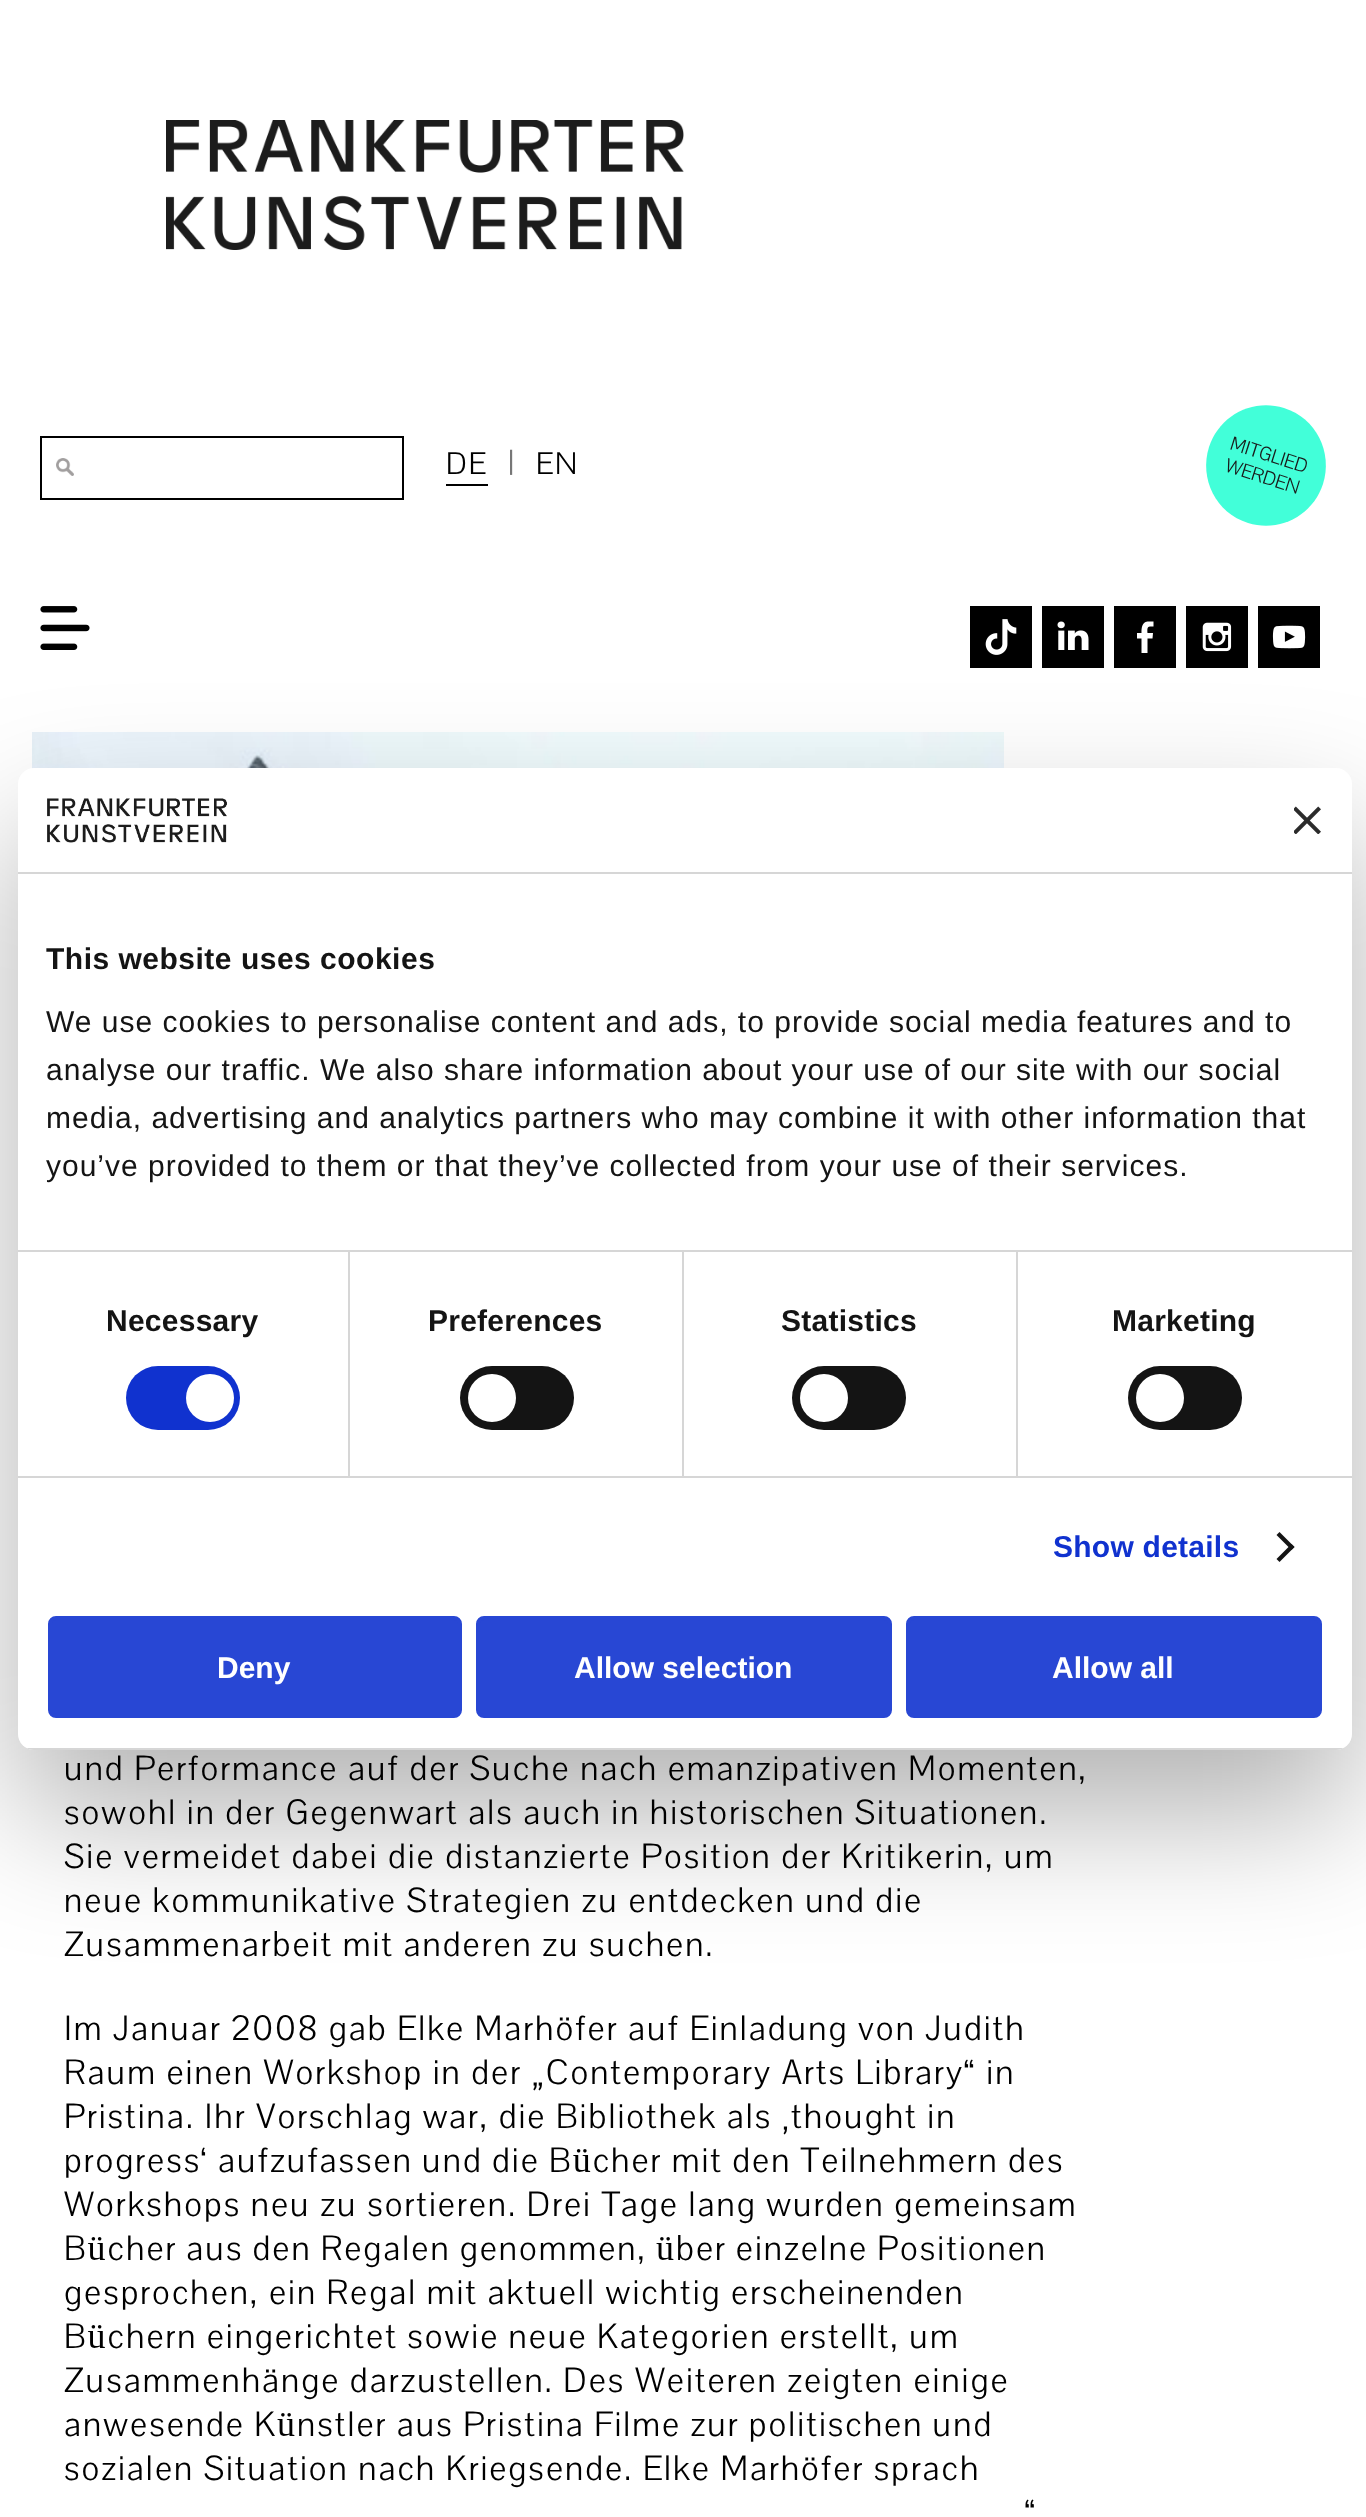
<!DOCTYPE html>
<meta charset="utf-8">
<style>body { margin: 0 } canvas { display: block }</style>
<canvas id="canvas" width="1366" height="2517"></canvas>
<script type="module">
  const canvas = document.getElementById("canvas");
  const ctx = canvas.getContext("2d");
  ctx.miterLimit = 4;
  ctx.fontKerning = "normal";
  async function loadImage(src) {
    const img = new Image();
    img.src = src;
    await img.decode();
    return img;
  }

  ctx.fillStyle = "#ffffff";
  ctx.fillRect(0, 0, 1366, 2517);
  ctx.drawImage(await loadImage("img1.png"), 166, 120, 518, 130);
  ctx.strokeStyle = "#000000";
  ctx.lineWidth = 2;
  ctx.strokeRect(41, 437, 362, 62);
  ctx.drawImage(await loadImage("img2.png"), 56, 458, 18, 18);
  ctx.letterSpacing = "2px";
  ctx.font = "32px Pavanam";
  ctx.fillStyle = "#000000";
  ctx.fillText("DE", 446, 474);
  ctx.fillRect(446, 484, 42, 2);
  ctx.fillStyle = "#777777";
  ctx.fillText("|", 508, 472);
  ctx.fillStyle = "#000000";
  ctx.fillText("EN", 536, 474);
  ctx.fillStyle = "#42ffd9";
  ctx.beginPath();
  ctx.moveTo(1284, 408);
  ctx.bezierCurveTo(1316, 418, 1333, 452, 1323, 484);
  ctx.bezierCurveTo(1313, 515, 1280, 533, 1248, 523);
  ctx.bezierCurveTo(1216, 513, 1199, 479, 1209, 447);
  ctx.bezierCurveTo(1219, 416, 1252, 398, 1284, 408);
  ctx.closePath();
  ctx.fill();
  ctx.letterSpacing = "0px";
  ctx.font = "20px Pavanam";
  ctx.fillStyle = "#1a1a1a";
  ctx.save();
  ctx.translate(1229, 449);
  ctx.rotate(17.5 * Math.PI / 180);
  ctx.fillText("MITGLIED", 0, 0);
  ctx.restore();
  ctx.save();
  ctx.translate(1224, 471);
  ctx.rotate(17.5 * Math.PI / 180);
  ctx.fillText("WERDEN", 0, 0);
  ctx.restore();
  ctx.drawImage(await loadImage("img3.png"), 40, 606, 50, 44);
  ctx.drawImage(await loadImage("img4.png"), 970, 606, 62, 62);
  ctx.drawImage(await loadImage("img5.png"), 1042, 606, 62, 62);
  ctx.fillStyle = "#000000";
  ctx.fillRect(1114, 606, 62, 62);
  ctx.fillStyle = "#ffffff";
  ctx.beginPath();
  ctx.moveTo(1150, 626.5);
  ctx.lineTo(1153.5, 626.5);
  ctx.lineTo(1153.5, 621.5);
  ctx.lineTo(1147.5, 621.5);
  ctx.bezierCurveTo(1141.5, 622.5, 1141.5, 628.5, 1141.5, 633);
  ctx.lineTo(1137, 633);
  ctx.lineTo(1137, 638.5);
  ctx.lineTo(1141.5, 638.5);
  ctx.lineTo(1141.5, 653);
  ctx.lineTo(1147.5, 653);
  ctx.lineTo(1147.5, 638.5);
  ctx.lineTo(1152.5, 638.5);
  ctx.lineTo(1153, 633);
  ctx.lineTo(1147.5, 633);
  ctx.bezierCurveTo(1147.5, 631, 1146.5, 626.5, 1150, 626.5);
  ctx.closePath();
  ctx.fill("evenodd");
  ctx.drawImage(await loadImage("img6.png"), 1186, 606, 62, 62);
  ctx.drawImage(await loadImage("img7.png"), 1258, 606, 62, 62);
  ctx.drawImage(await loadImage("img8.png"), 32, 732, 972, 37);
  ctx.letterSpacing = "2px";
  ctx.font = "36px Pavanam";
  ctx.fillStyle = "#000000";
  ctx.fillText("und Performance auf der Suche nach emanzipativen Momenten,", 64, 1780);
  ctx.fillText("sowohl in der Gegenwart als auch in historischen Situationen.", 64, 1824);
  ctx.fillText("Sie vermeidet dabei die distanzierte Position der Kritikerin, um", 64, 1868);
  ctx.fillText("neue kommunikative Strategien zu entdecken und die", 64, 1912);
  ctx.fillText("Zusammenarbeit mit anderen zu suchen.", 64, 1956);
  ctx.fillText("Im Januar 2008 gab Elke Marhöfer auf Einladung von Judith", 64, 2040);
  ctx.fillText("Raum einen Workshop in der „Contemporary Arts Library“ in", 64, 2084);
  ctx.fillText("Pristina. Ihr Vorschlag war, die Bibliothek als ‚thought in", 64, 2128);
  ctx.wordSpacing = "-0.25px";
  ctx.fillText("progress‘ aufzufassen und die Bücher mit den Teilnehmern des", 64, 2172);
  ctx.wordSpacing = "0px";
  ctx.fillText("Workshops neu zu sortieren. Drei Tage lang wurden gemeinsam", 64, 2216);
  ctx.wordSpacing = "-0.5px";
  ctx.fillText("Bücher aus den Regalen genommen, über einzelne Positionen", 64, 2260);
  ctx.wordSpacing = "0px";
  ctx.fillText("gesprochen, ein Regal mit aktuell wichtig erscheinenden", 64, 2304);
  ctx.wordSpacing = "-0.25px";
  ctx.fillText("Büchern eingerichtet sowie neue Kategorien erstellt, um", 64, 2348);
  ctx.wordSpacing = "0px";
  ctx.fillText("Zusammenhänge darzustellen. Des Weiteren zeigten einige", 64, 2392);
  ctx.wordSpacing = "-0.25px";
  ctx.fillText("anwesende Künstler aus Pristina Filme zur politischen und", 64, 2436);
  ctx.wordSpacing = "0px";
  ctx.fillText("sozialen Situation nach Kriegsende. Elke Marhöfer sprach", 64, 2480);
  ctx.fillText("“", 1025, 2524);
  ctx.fillStyle = "rgba(0, 0, 0, 0.3)";
  ctx.filter = "blur(68px)";
  ctx.beginPath();
  ctx.roundRect(18, 832, 1334, 982, 16);
  ctx.fill();
  ctx.filter = "none";
  ctx.fillStyle = "#ffffff";
  ctx.beginPath();
  ctx.roundRect(18, 768, 1334, 982, 16);
  ctx.fill();
  ctx.fillStyle = "#d6d6d6";
  ctx.fillRect(18, 872, 1334, 2);
  ctx.drawImage(await loadImage("img9.png"), 47, 798, 180, 45);
  ctx.drawImage(await loadImage("img10.png"), 1294, 806, 27, 28);
  ctx.fillRect(18, 1250, 1334, 2);
  ctx.letterSpacing = "0.5px";
  ctx.font = "bold 30px Liberation Sans";
  ctx.fillStyle = "#141414";
  ctx.fillText("This website uses cookies", 46, 969);
  ctx.letterSpacing = "1px";
  ctx.font = "30px Liberation Sans";
  ctx.fillText("We use cookies to personalise content and ads, to provide social media features and to", 46, 1032);
  ctx.fillText("analyse our traffic. We also share information about your use of our site with our social", 46, 1080);
  ctx.fillText("media, advertising and analytics partners who may combine it with other information that", 46, 1128);
  ctx.fillText("you’ve provided to them or that they’ve collected from your use of their services.", 46, 1176);
  ctx.fillStyle = "#d6d6d6";
  ctx.fillRect(18, 1476, 1334, 2);
  ctx.fillRect(348, 1252, 2, 224);
  ctx.letterSpacing = "0.25px";
  ctx.font = "bold 30px Liberation Sans";
  ctx.fillStyle = "#141414";
  ctx.fillText("Necessary", 106, 1331);
  ctx.fillStyle = "#1032cf";
  ctx.beginPath();
  ctx.roundRect(126, 1366, 114, 64, 32);
  ctx.fill();
  ctx.fillStyle = "#ffffff";
  ctx.beginPath();
  ctx.arc(210, 1398, 24, 0, Math.PI * 2);
  ctx.fill();
  ctx.fillStyle = "#d6d6d6";
  ctx.fillRect(682, 1252, 2, 224);
  ctx.fillStyle = "#141414";
  ctx.fillText("Preferences", 428, 1331);
  ctx.beginPath();
  ctx.roundRect(460, 1366, 114, 64, 32);
  ctx.fill();
  ctx.fillStyle = "#ffffff";
  ctx.beginPath();
  ctx.arc(492, 1398, 24, 0, Math.PI * 2);
  ctx.fill();
  ctx.fillStyle = "#d6d6d6";
  ctx.fillRect(1016, 1252, 2, 224);
  ctx.fillStyle = "#141414";
  ctx.fillText("Statistics", 781, 1331);
  ctx.beginPath();
  ctx.roundRect(792, 1366, 114, 64, 32);
  ctx.fill();
  ctx.fillStyle = "#ffffff";
  ctx.beginPath();
  ctx.arc(824, 1398, 24, 0, Math.PI * 2);
  ctx.fill();
  ctx.fillStyle = "#141414";
  ctx.fillText("Marketing", 1112, 1331);
  ctx.beginPath();
  ctx.roundRect(1128, 1366, 114, 64, 32);
  ctx.fill();
  ctx.fillStyle = "#ffffff";
  ctx.beginPath();
  ctx.arc(1160, 1398, 24, 0, Math.PI * 2);
  ctx.fill();
  ctx.fillStyle = "#1032cf";
  ctx.fillText("Show details", 1053, 1557);
  ctx.fillStyle = "#141414";
  ctx.beginPath();
  ctx.moveTo(1279.5, 1532);
  ctx.lineTo(1294.5, 1547);
  ctx.lineTo(1291.5, 1550);
  ctx.lineTo(1276.5, 1535);
  ctx.closePath();
  ctx.fill();
  ctx.beginPath();
  ctx.moveTo(1291.5, 1544);
  ctx.lineTo(1294.5, 1547);
  ctx.lineTo(1279.5, 1562);
  ctx.lineTo(1276.5, 1559);
  ctx.closePath();
  ctx.fill();
  ctx.save();
  ctx.beginPath();
  ctx.roundRect(18, 768, 1334, 982, 16);
  ctx.clip();
  ctx.fillStyle = "#d6d6d6";
  ctx.fillRect(18, 1748, 1334, 2);
  ctx.restore();
  ctx.fillStyle = "#2847d4";
  ctx.beginPath();
  ctx.roundRect(50, 1618, 410, 98, 6);
  ctx.fill();
  ctx.strokeStyle = "#2847d4";
  ctx.lineWidth = 4;
  ctx.stroke();
  ctx.letterSpacing = "0px";
  ctx.fillStyle = "#ffffff";
  ctx.fillText("Deny", 217, 1678);
  ctx.fillStyle = "#2847d4";
  ctx.beginPath();
  ctx.roundRect(478, 1618, 412, 98, 6);
  ctx.fill();
  ctx.stroke();
  ctx.fillStyle = "#ffffff";
  ctx.fillText("Allow selection", 574, 1678);
  ctx.fillStyle = "#2847d4";
  ctx.beginPath();
  ctx.roundRect(908, 1618, 412, 98, 6);
  ctx.fill();
  ctx.stroke();
  ctx.fillStyle = "#ffffff";
  ctx.fillText("Allow all", 1052, 1678);
</script>
